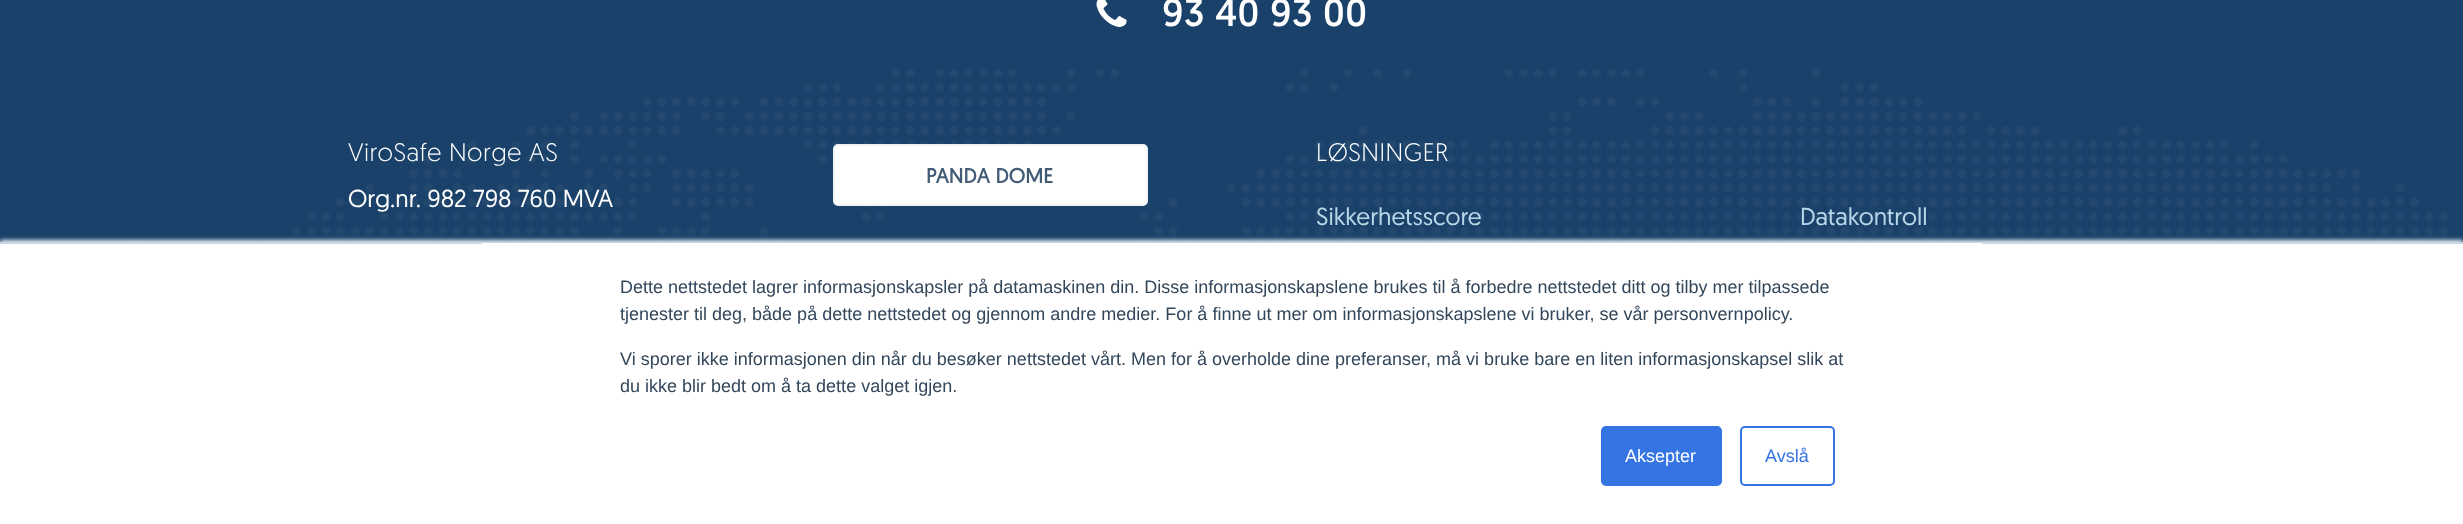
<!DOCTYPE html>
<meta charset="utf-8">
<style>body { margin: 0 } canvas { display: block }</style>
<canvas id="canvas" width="2463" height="524"></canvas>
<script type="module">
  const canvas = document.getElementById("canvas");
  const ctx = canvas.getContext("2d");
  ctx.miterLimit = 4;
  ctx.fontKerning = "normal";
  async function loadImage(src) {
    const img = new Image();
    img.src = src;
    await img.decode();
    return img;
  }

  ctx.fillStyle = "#1a4169";
  ctx.fillRect(0, 0, 2463, 524);
  ctx.drawImage(await loadImage("img1.png"), 1096, 0, 31, 27);
  ctx.letterSpacing = "0.5px";
  ctx.font = "38.5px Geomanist";
  ctx.fillStyle = "#ffffff";
  ctx.fillText("93 40 93 00", 1162, 26);
  ctx.drawImage(await loadImage("img2.png"), 134, 69, 2327, 173);
  ctx.font = "300 25.25px Geomanist";
  ctx.fillText("ViroSafe Norge AS", 348, 161);
  ctx.letterSpacing = "0px";
  ctx.font = "24.5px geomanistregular";
  ctx.fillText("Org.nr. 982 798 760 MVA", 348, 207);
  ctx.beginPath();
  ctx.roundRect(834, 145, 313, 60, 4);
  ctx.fill();
  ctx.strokeStyle = "#f0f4f7";
  ctx.lineWidth = 2;
  ctx.stroke();
  ctx.letterSpacing = "0.25px";
  ctx.font = "bold 20.5px geomanistregular";
  ctx.fillStyle = "#425b76";
  ctx.fillText("PANDA DOME", 926, 183);
  ctx.letterSpacing = "0.5px";
  ctx.font = "300 25.25px Geomanist";
  ctx.fillStyle = "#ffffff";
  ctx.fillText("LØSNINGER", 1316, 161);
  ctx.letterSpacing = "0px";
  ctx.font = "24.5px geomanistregular";
  ctx.fillStyle = "#b8d7e9";
  ctx.fillText("Sikkerhetsscore", 1316, 225);
  ctx.fillText("Datakontroll", 1800, 225);
  ctx.fillStyle = "#eaf0f6";
  ctx.filter = "blur(2px)";
  ctx.beginPath();
  ctx.rect(0, 240, 2463, 284);
  ctx.fill();
  ctx.filter = "none";
  ctx.fillStyle = "#ffffff";
  ctx.fillRect(0, 244, 2463, 280);
  ctx.fillStyle = "#cbd6e2";
  ctx.fillRect(0, 242, 2463, 2);
  ctx.fillStyle = "#ffffff";
  ctx.fillRect(482, 243, 1500, 1);
  ctx.font = "18px Liberation Sans";
  ctx.fillStyle = "#33475b";
  ctx.fillText("Dette nettstedet lagrer informasjonskapsler på datamaskinen din. Disse informasjonskapslene brukes til å forbedre nettstedet ditt og tilby mer tilpassede", 620, 293);
  ctx.fillText("tjenester til deg, både på dette nettstedet og gjennom andre medier. For å finne ut mer om informasjonskapslene vi bruker, se vår personvernpolicy.", 620, 320);
  ctx.fillText("Vi sporer ikke informasjonen din når du besøker nettstedet vårt. Men for å overholde dine preferanser, må vi bruke bare en liten informasjonskapsel slik at", 620, 365);
  ctx.fillText("du ikke blir bedt om å ta dette valget igjen.", 620, 392);
  ctx.fillStyle = "#3574e3";
  ctx.beginPath();
  ctx.roundRect(1602, 427, 119, 58, 4);
  ctx.fill();
  ctx.strokeStyle = "#3574e3";
  ctx.stroke();
  ctx.fillStyle = "#ffffff";
  ctx.fillText("Aksepter", 1625, 462);
  ctx.beginPath();
  ctx.roundRect(1741, 427, 93, 58, 4);
  ctx.stroke();
  ctx.fillStyle = "#3574e3";
  ctx.fillText("Avslå", 1765, 462);
</script>
